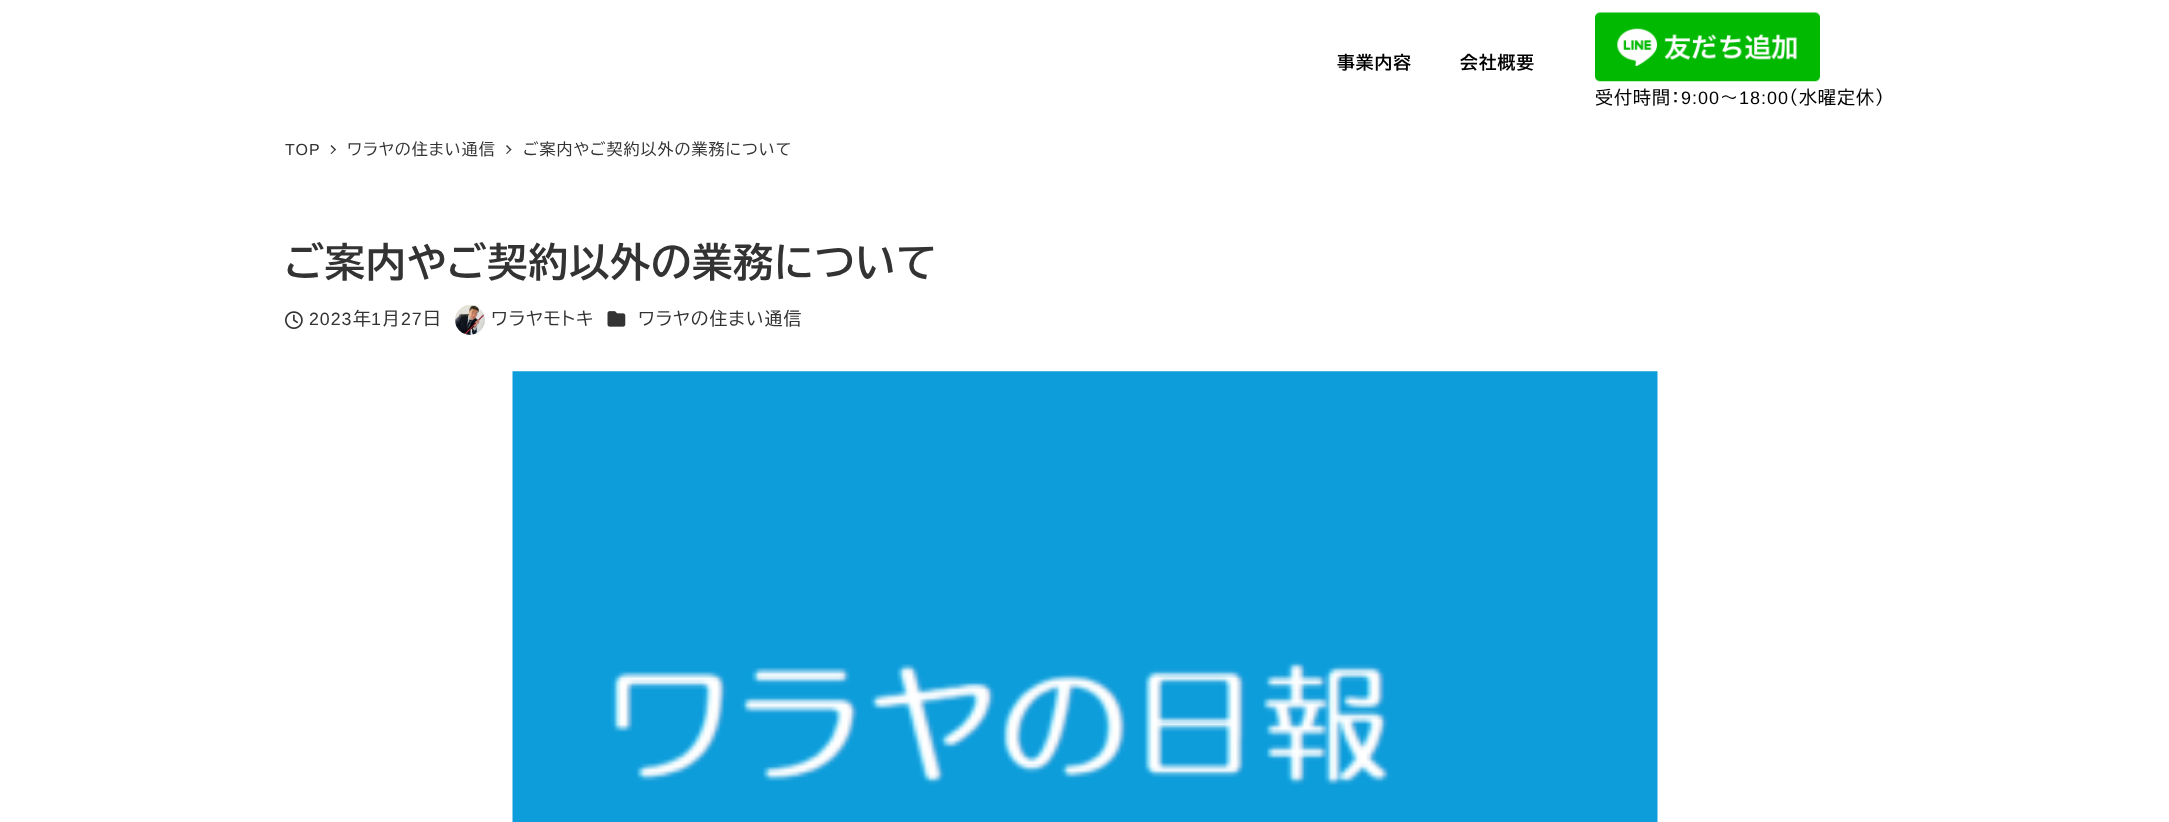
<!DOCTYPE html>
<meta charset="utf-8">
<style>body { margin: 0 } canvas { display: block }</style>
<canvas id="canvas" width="2169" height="822"></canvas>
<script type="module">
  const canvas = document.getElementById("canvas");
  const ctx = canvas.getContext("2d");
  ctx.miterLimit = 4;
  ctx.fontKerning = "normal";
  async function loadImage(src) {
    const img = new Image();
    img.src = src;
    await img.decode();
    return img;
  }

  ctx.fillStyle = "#ffffff";
  ctx.fillRect(0, 0, 2169, 822);
  ctx.letterSpacing = "1px";
  ctx.font = "bold 17.75px BIZ UDPGothic";
  ctx.fillStyle = "#000000";
  ctx.fillText("事業内容", 1337, 69);
  ctx.fillText("会社概要", 1460, 69);
  ctx.drawImage(await loadImage("img1.png"), 1595, 12, 225, 70);
  ctx.font = "18px BIZ UDPGothic";
  ctx.fillText("受付時間：", 1595, 104);
  ctx.font = "18px Liberation Sans";
  ctx.fillText("9:00", 1681, 104);
  ctx.font = "18px BIZ UDPGothic";
  ctx.fillText("〜", 1720, 104);
  ctx.font = "18px Liberation Sans";
  ctx.fillText("18:00", 1739, 104);
  ctx.font = "18px BIZ UDPGothic";
  ctx.fillText("（水曜定休）", 1789, 104);
  ctx.font = "16px Liberation Sans";
  ctx.fillStyle = "#333333";
  ctx.fillText("TOP", 285, 155);
  ctx.beginPath();
  ctx.moveTo(331.5, 145);
  ctx.lineTo(336, 149.5);
  ctx.lineTo(335, 150.5);
  ctx.lineTo(330.5, 146);
  ctx.closePath();
  ctx.fill();
  ctx.beginPath();
  ctx.moveTo(335, 149);
  ctx.lineTo(336, 149.5);
  ctx.lineTo(331.5, 154);
  ctx.lineTo(330.5, 153.5);
  ctx.closePath();
  ctx.fill();
  ctx.font = "16px BIZ UDPGothic";
  ctx.fillText("ワラヤの住まい通信", 347, 155);
  ctx.beginPath();
  ctx.moveTo(507, 145);
  ctx.lineTo(511.5, 149.5);
  ctx.lineTo(510.5, 150.5);
  ctx.lineTo(506, 146);
  ctx.closePath();
  ctx.fill();
  ctx.beginPath();
  ctx.moveTo(510.5, 149);
  ctx.lineTo(511.5, 149.5);
  ctx.lineTo(507, 154);
  ctx.lineTo(506, 153.5);
  ctx.closePath();
  ctx.fill();
  ctx.fillText("ご案内やご契約以外の業務について", 523, 155);
  ctx.font = "bold 40px BIZ UDPGothic";
  ctx.fillText("ご案内やご契約以外の業務について", 285, 277);
  ctx.drawImage(await loadImage("img2.png"), 285, 311, 18, 18);
  ctx.font = "17.75px Liberation Sans";
  ctx.fillText("2023", 309, 325);
  ctx.font = "17.75px BIZ UDPGothic";
  ctx.fillText("年", 353, 325);
  ctx.font = "17.75px Liberation Sans";
  ctx.fillText("1", 371, 325);
  ctx.font = "17.75px BIZ UDPGothic";
  ctx.fillText("月", 382, 325);
  ctx.font = "17.75px Liberation Sans";
  ctx.fillText("27", 401, 325);
  ctx.font = "17.75px BIZ UDPGothic";
  ctx.fillText("日", 423, 325);
  ctx.drawImage(await loadImage("img3.png"), 455, 305, 30, 30);
  ctx.fillText("ワラヤモトキ", 491, 325);
  ctx.drawImage(await loadImage("img4.png"), 607, 311, 19, 16);
  ctx.fillText("ワラヤの住まい通信", 638, 325);
  ctx.drawImage(await loadImage("img5.png"), 512, 371, 1146, 451);
</script>
